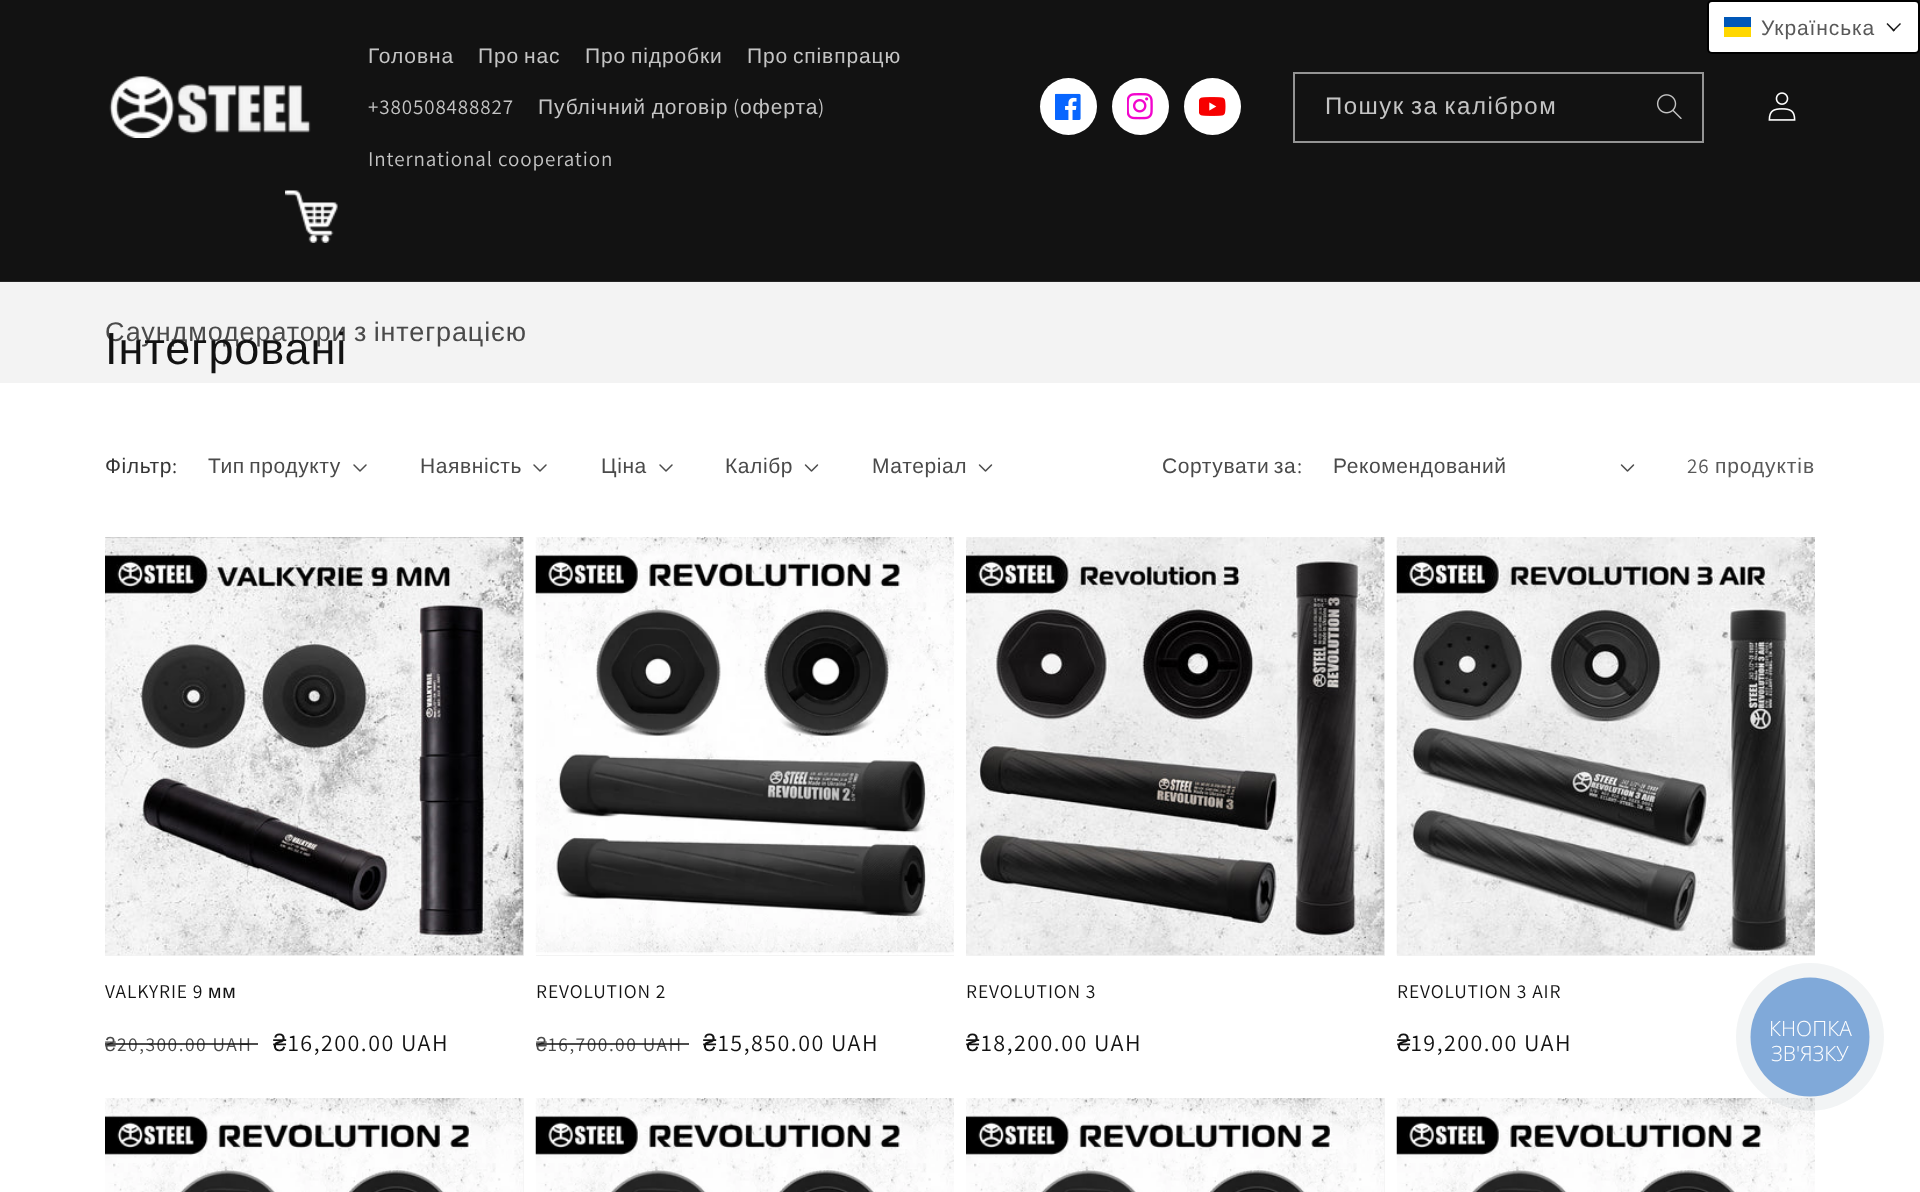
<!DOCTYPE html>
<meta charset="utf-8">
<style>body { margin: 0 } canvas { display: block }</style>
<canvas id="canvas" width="1920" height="1192"></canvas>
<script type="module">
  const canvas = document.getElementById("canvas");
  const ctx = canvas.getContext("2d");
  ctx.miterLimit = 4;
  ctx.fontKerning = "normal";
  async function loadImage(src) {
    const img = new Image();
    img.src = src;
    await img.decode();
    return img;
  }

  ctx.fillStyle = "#ffffff";
  ctx.fillRect(0, 0, 1920, 1192);
  ctx.fillStyle = "#121212";
  ctx.fillRect(0, 0, 1920, 281);
  ctx.fillStyle = "#ffffff";
  ctx.beginPath();
  ctx.roundRect(1708, 1, 211, 52, 4);
  ctx.fill();
  ctx.strokeStyle = "#000000";
  ctx.lineWidth = 2;
  ctx.stroke();
  ctx.fillStyle = "#ffd700";
  ctx.fillRect(1724, 27, 27, 10);
  ctx.fillStyle = "#0057b8";
  ctx.fillRect(1724, 17, 27, 10);
  ctx.letterSpacing = "0.9px";
  ctx.font = "21px Liberation Sans";
  ctx.fillStyle = "#595959";
  ctx.fillText("Українська", 1761, 35);
  ctx.fillStyle = "#1a1a1a";
  ctx.beginPath();
  ctx.moveTo(1900, 23);
  ctx.lineTo(1901, 24);
  ctx.lineTo(1893.5, 31.5);
  ctx.lineTo(1892.5, 30.5);
  ctx.closePath();
  ctx.fill();
  ctx.beginPath();
  ctx.moveTo(1887.5, 23);
  ctx.lineTo(1895, 30.5);
  ctx.lineTo(1893.5, 31.5);
  ctx.lineTo(1886.5, 24);
  ctx.closePath();
  ctx.fill();
  ctx.fillStyle = "#252525";
  ctx.fillRect(0, 281, 1920, 1);
  ctx.drawImage(await loadImage("img1.png"), 109, 76, 202, 62);
  ctx.fillStyle = "#c4c4c4";
  ctx.fillText("Головна", 368, 63);
  ctx.wordSpacing = "-2px";
  ctx.fillText("Про нас", 478, 63);
  ctx.fillText("Про підробки", 585, 63);
  ctx.fillText("Про співпрацю", 747, 63);
  ctx.wordSpacing = "0px";
  ctx.font = "21px Assistant";
  ctx.fillText("+380508488827", 368, 114);
  ctx.wordSpacing = "-1px";
  ctx.font = "21px Liberation Sans";
  ctx.fillText("Публічний договір", 538, 114);
  ctx.wordSpacing = "0px";
  ctx.font = "21px Assistant";
  ctx.fillText("(", 733, 114);
  ctx.font = "21px Liberation Sans";
  ctx.fillText("оферта", 740, 114);
  ctx.font = "21px Assistant";
  ctx.fillText(")", 818, 114);
  ctx.fillText("International cooperation", 368, 166);
  ctx.fillStyle = "#ffffff";
  ctx.beginPath();
  ctx.arc(1068.5, 106.5, 28.5, 0, Math.PI * 2);
  ctx.fill();
  ctx.drawImage(await loadImage("img2.png"), 1055, 93, 26, 27);
  ctx.beginPath();
  ctx.arc(1140.5, 106.5, 28.5, 0, Math.PI * 2);
  ctx.fill();
  ctx.drawImage(await loadImage("img3.png"), 1127, 93, 26, 27);
  ctx.beginPath();
  ctx.arc(1212.5, 106.5, 28.5, 0, Math.PI * 2);
  ctx.fill();
  ctx.drawImage(await loadImage("img4.png"), 1199, 97, 27, 19);
  ctx.drawImage(await loadImage("img5.png"), 1656, 94, 26, 25);
  ctx.strokeStyle = "#949494";
  ctx.strokeRect(1294, 73, 409, 69);
  ctx.letterSpacing = "1.5px";
  ctx.wordSpacing = "-2px";
  ctx.font = "24px Liberation Sans";
  ctx.fillStyle = "#c4c4c4";
  ctx.fillText("Пошук за калібром", 1325, 114);
  ctx.drawImage(await loadImage("img6.png"), 1768, 92, 28, 29);
  ctx.drawImage(await loadImage("img7.png"), 285, 190, 53, 53);
  ctx.fillStyle = "#f3f3f3";
  ctx.fillRect(0, 283, 1920, 100);
  ctx.fillStyle = "#f4f4f4";
  ctx.fillRect(0, 282, 1920, 1);
  ctx.letterSpacing = "0.9px";
  ctx.font = "27px Liberation Sans";
  ctx.fillStyle = "#4a4a4a";
  ctx.fillText("Саундмодератори з інтеграцією", 105, 341);
  ctx.wordSpacing = "0px";
  ctx.font = "45px Liberation Sans";
  ctx.fillStyle = "#121212";
  ctx.fillText("Інтегровані", 105, 364);
  ctx.letterSpacing = "0.6px";
  ctx.font = "21px Liberation Sans";
  ctx.fillStyle = "#363636";
  ctx.fillText("Фільтр", 105, 473);
  ctx.font = "21px Assistant";
  ctx.fillText(":", 172, 473);
  ctx.wordSpacing = "-2px";
  ctx.font = "21px Liberation Sans";
  ctx.fillStyle = "#4a4a4a";
  ctx.fillText("Тип продукту", 208, 473);
  ctx.drawImage(await loadImage("img8.png"), 353, 464, 14, 8);
  ctx.wordSpacing = "0px";
  ctx.fillText("Наявність", 420, 473);
  ctx.drawImage(await loadImage("img8.png"), 533, 464, 14, 8);
  ctx.fillText("Ціна", 601, 473);
  ctx.drawImage(await loadImage("img8.png"), 659, 464, 14, 8);
  ctx.fillText("Калібр", 725, 473);
  ctx.drawImage(await loadImage("img9.png"), 804, 464, 15, 8);
  ctx.fillText("Матеріал", 872, 473);
  ctx.drawImage(await loadImage("img9.png"), 978, 464, 15, 8);
  ctx.wordSpacing = "-2px";
  ctx.fillText("Сортувати за", 1162, 473);
  ctx.wordSpacing = "0px";
  ctx.font = "21px Assistant";
  ctx.fillText(":", 1297, 473);
  ctx.font = "21px Liberation Sans";
  ctx.fillText("Рекомендований", 1333, 473);
  ctx.drawImage(await loadImage("img9.png"), 1620, 464, 15, 8);
  ctx.letterSpacing = "0.9px";
  ctx.font = "21px Assistant";
  ctx.fillStyle = "#595959";
  ctx.fillText("26", 1687, 473);
  ctx.font = "21px Liberation Sans";
  ctx.fillText("продуктів", 1715, 473);
  ctx.fillStyle = "#f3f3f3";
  ctx.fillRect(105, 537, 419, 419);
  ctx.drawImage(await loadImage("img10.png"), 105, 537, 419, 419);
  ctx.font = "19.5px Assistant";
  ctx.fillStyle = "#121212";
  ctx.fillText("VALKYRIE 9", 105, 998);
  ctx.font = "19.5px Liberation Sans";
  ctx.fillText("мм", 208, 998);
  ctx.letterSpacing = "1.5px";
  ctx.fillStyle = "#4a4a4a";
  ctx.fillText("₴", 105, 1051);
  ctx.font = "19.5px Assistant";
  ctx.fillText("20,300.00 UAH", 117, 1051);
  ctx.fillStyle = "rgba(18, 18, 18, 0.75)";
  ctx.fillRect(105, 1043, 153, 2);
  ctx.font = "24px Liberation Sans";
  ctx.fillStyle = "#121212";
  ctx.fillText("₴", 273, 1051);
  ctx.font = "24px Assistant";
  ctx.fillText("16,200.00 UAH", 288, 1051);
  ctx.fillStyle = "#f3f3f3";
  ctx.fillRect(536, 955, 418, 1);
  ctx.drawImage(await loadImage("img11.png"), 535, 537, 419, 418);
  ctx.letterSpacing = "0.9px";
  ctx.font = "19.5px Assistant";
  ctx.fillStyle = "#121212";
  ctx.fillText("REVOLUTION 2", 536, 998);
  ctx.letterSpacing = "1.5px";
  ctx.font = "19.5px Liberation Sans";
  ctx.fillStyle = "#4a4a4a";
  ctx.fillText("₴", 536, 1051);
  ctx.font = "19.5px Assistant";
  ctx.fillText("16,700.00 UAH", 548, 1051);
  ctx.fillStyle = "rgba(18, 18, 18, 0.75)";
  ctx.fillRect(536, 1043, 153, 2);
  ctx.font = "24px Liberation Sans";
  ctx.fillStyle = "#121212";
  ctx.fillText("₴", 703, 1051);
  ctx.font = "24px Assistant";
  ctx.fillText("15,850.00 UAH", 718, 1051);
  ctx.fillStyle = "#f3f3f3";
  ctx.fillRect(966, 537, 419, 419);
  ctx.drawImage(await loadImage("img12.png"), 966, 537, 419, 419);
  ctx.letterSpacing = "0.9px";
  ctx.font = "19.5px Assistant";
  ctx.fillStyle = "#121212";
  ctx.fillText("REVOLUTION 3", 966, 998);
  ctx.letterSpacing = "1.5px";
  ctx.font = "24px Liberation Sans";
  ctx.fillText("₴", 966, 1051);
  ctx.font = "24px Assistant";
  ctx.fillText("18,200.00 UAH", 981, 1051);
  ctx.fillStyle = "#f3f3f3";
  ctx.fillRect(1397, 955, 418, 1);
  ctx.drawImage(await loadImage("img13.png"), 1396, 537, 419, 419);
  ctx.letterSpacing = "0.9px";
  ctx.font = "19.5px Assistant";
  ctx.fillStyle = "#121212";
  ctx.fillText("REVOLUTION 3 AIR", 1397, 998);
  ctx.letterSpacing = "1.5px";
  ctx.font = "24px Liberation Sans";
  ctx.fillText("₴", 1397, 1051);
  ctx.font = "24px Assistant";
  ctx.fillText("19,200.00 UAH", 1411, 1051);
  ctx.fillStyle = "#f3f3f3";
  ctx.fillRect(523, 1098, 1, 94);
  ctx.drawImage(await loadImage("img14.png"), 105, 1098, 419, 94);
  ctx.drawImage(await loadImage("img15.png"), 535, 1098, 419, 94);
  ctx.fillRect(1384, 1098, 1, 94);
  ctx.drawImage(await loadImage("img16.png"), 966, 1098, 419, 94);
  ctx.drawImage(await loadImage("img15.png"), 1396, 1098, 419, 94);
  ctx.fillStyle = "rgba(42, 64, 93, 0.06)";
  ctx.beginPath();
  ctx.arc(1810, 1037, 74, 0, Math.PI * 2);
  ctx.fill();
  ctx.fillStyle = "#80a9d9";
  ctx.beginPath();
  ctx.arc(1810, 1037, 59.5, 0, Math.PI * 2);
  ctx.fill();
  ctx.letterSpacing = "0px";
  ctx.font = "300 21px Open Sans";
  ctx.fillStyle = "#ffffff";
  ctx.fillText("КНОПКА", 1769, 1036);
  ctx.fillText("ЗВ'ЯЗКУ", 1771, 1061);
</script>
